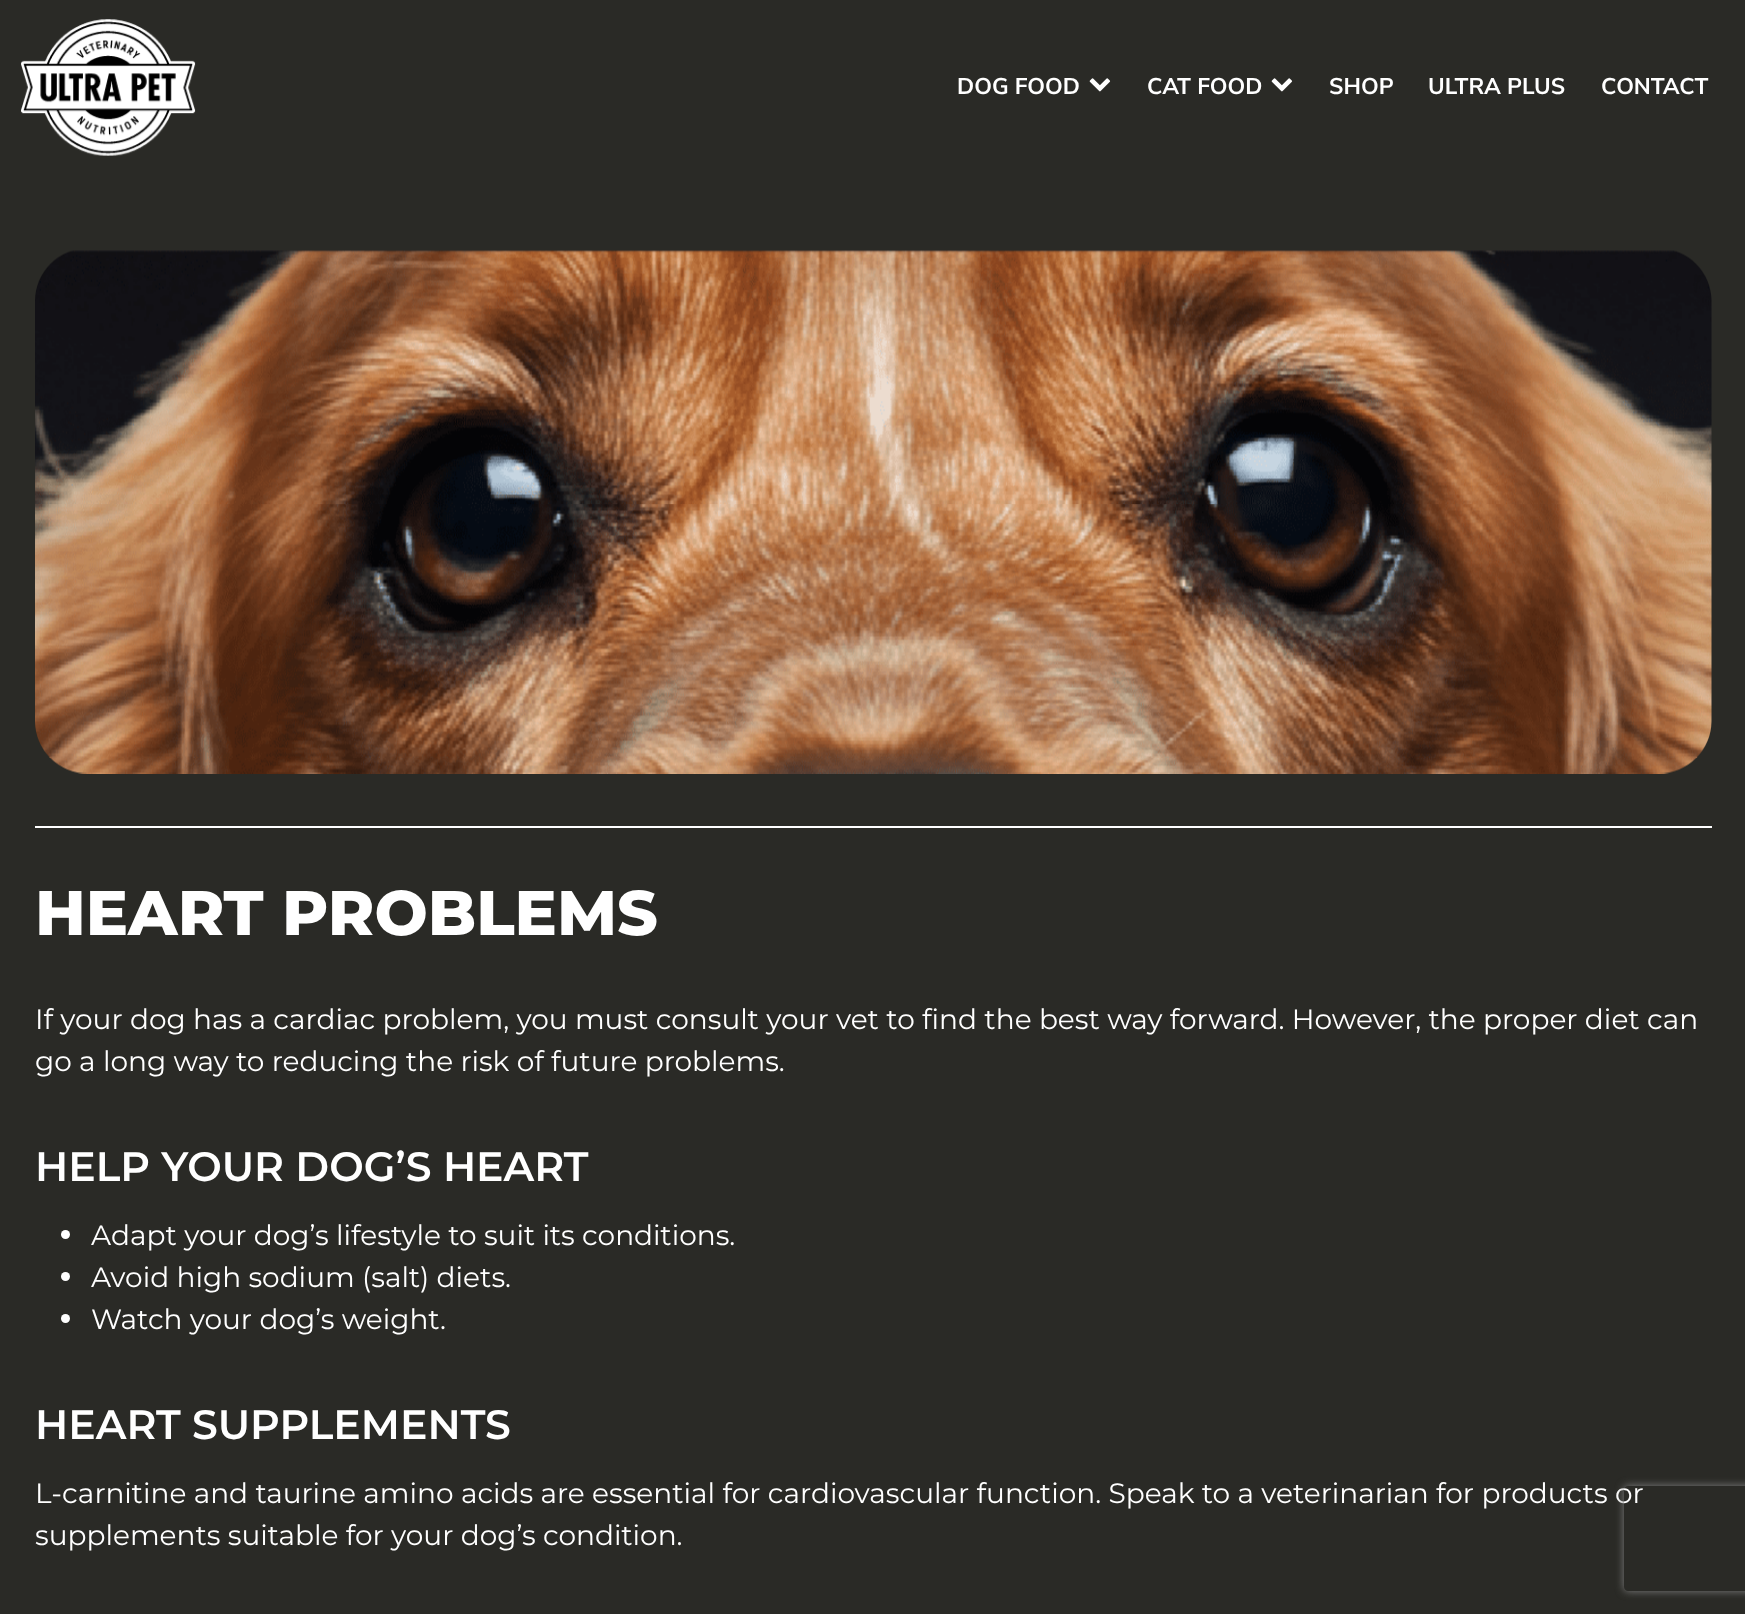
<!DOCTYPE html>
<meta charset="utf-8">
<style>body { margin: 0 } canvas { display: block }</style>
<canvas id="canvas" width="1745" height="1614"></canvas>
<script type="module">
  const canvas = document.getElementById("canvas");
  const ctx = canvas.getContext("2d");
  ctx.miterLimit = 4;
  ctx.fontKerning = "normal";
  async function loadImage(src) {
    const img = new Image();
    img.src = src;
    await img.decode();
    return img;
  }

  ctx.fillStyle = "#2a2a26";
  ctx.fillRect(0, 0, 1745, 1614);
  ctx.drawImage(await loadImage("img1.png"), 21, 19, 175, 137);
  ctx.font = "bold 22.75px Nunito Sans";
  ctx.fillStyle = "#ffffff";
  ctx.fillText("DOG FOOD", 957, 94);
  ctx.drawImage(await loadImage("img2.png"), 1089, 78, 22, 14);
  ctx.fillText("CAT FOOD", 1147, 94);
  ctx.drawImage(await loadImage("img2.png"), 1271, 78, 22, 14);
  ctx.fillText("SHOP", 1329, 94);
  ctx.fillText("ULTRA PLUS", 1428, 94);
  ctx.fillText("CONTACT", 1601, 94);
  ctx.drawImage(await loadImage("img3.png"), 35, 250, 1677, 524);
  ctx.fillRect(35, 826, 1677, 2);
  ctx.font = "800 63px Montserrat";
  ctx.fillText("HEART PROBLEMS", 35, 935);
  ctx.font = "28px Montserrat";
  ctx.fillText("If your dog has a cardiac problem, you must consult your vet to find the best way forward. However, the proper diet can", 35, 1029);
  ctx.fillText("go a long way to reducing the risk of future problems.", 35, 1071);
  ctx.font = "600 41px Montserrat";
  ctx.fillText("HELP YOUR DOG’S HEART", 35, 1181);
  ctx.beginPath();
  ctx.arc(65.5, 1234.5, 4.5, 0, Math.PI * 2);
  ctx.fill();
  ctx.font = "28px Montserrat";
  ctx.fillText("Adapt your dog’s lifestyle to suit its conditions.", 91, 1245);
  ctx.beginPath();
  ctx.arc(65.5, 1276.5, 4.5, 0, Math.PI * 2);
  ctx.fill();
  ctx.fillText("Avoid high sodium (salt) diets.", 91, 1287);
  ctx.beginPath();
  ctx.arc(65.5, 1318.5, 4.5, 0, Math.PI * 2);
  ctx.fill();
  ctx.fillText("Watch your dog’s weight.", 91, 1329);
  ctx.font = "600 41px Montserrat";
  ctx.fillText("HEART SUPPLEMENTS", 35, 1439);
  ctx.font = "28px Montserrat";
  ctx.fillText("L-carnitine and taurine amino acids are essential for cardiovascular function. Speak to a veterinarian for products or", 35, 1503);
  ctx.fillText("supplements suitable for your dog’s condition.", 35, 1545);
  ctx.save();
  ctx.beginPath();
  ctx.moveTo(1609, 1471);
  ctx.lineTo(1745, 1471);
  ctx.lineTo(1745, 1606);
  ctx.lineTo(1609, 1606);
  ctx.closePath();
  ctx.moveTo(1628, 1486);
  ctx.lineTo(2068, 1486);
  ctx.bezierCurveTo(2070, 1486, 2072, 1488, 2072, 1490);
  ctx.lineTo(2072, 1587);
  ctx.bezierCurveTo(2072, 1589, 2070, 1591, 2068, 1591);
  ctx.lineTo(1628, 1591);
  ctx.bezierCurveTo(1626, 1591, 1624, 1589, 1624, 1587);
  ctx.lineTo(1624, 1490);
  ctx.bezierCurveTo(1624, 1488, 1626, 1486, 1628, 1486);
  ctx.closePath();
  ctx.clip("evenodd");
  ctx.fillStyle = "#808080";
  ctx.filter = "blur(4.5px)";
  ctx.beginPath();
  ctx.roundRect(1624, 1486, 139, 105, 4);
  ctx.fill();
  ctx.filter = "none";
  ctx.restore();
</script>
